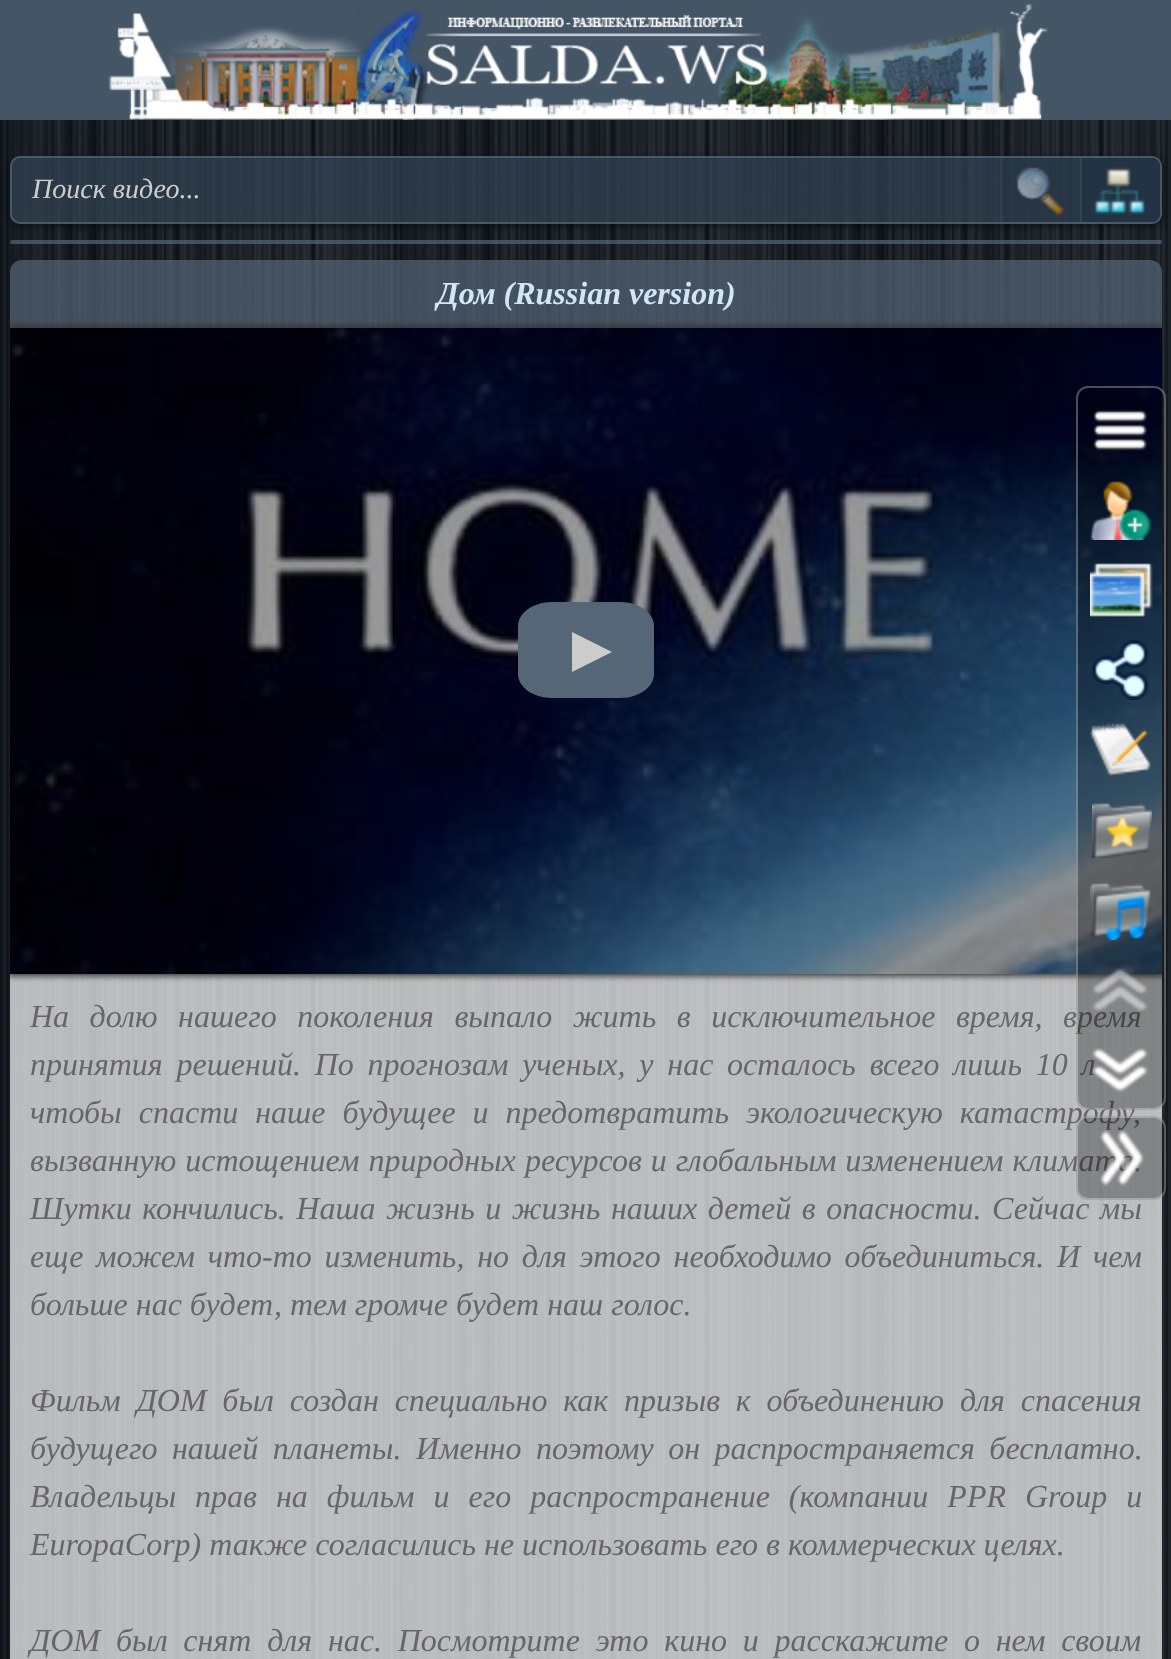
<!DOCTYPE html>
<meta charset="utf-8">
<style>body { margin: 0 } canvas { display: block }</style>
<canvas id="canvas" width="1171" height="1659"></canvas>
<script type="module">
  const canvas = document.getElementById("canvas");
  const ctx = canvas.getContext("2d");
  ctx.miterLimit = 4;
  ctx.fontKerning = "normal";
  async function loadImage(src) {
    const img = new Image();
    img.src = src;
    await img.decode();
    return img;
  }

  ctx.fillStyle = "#ffffff";
  ctx.fillRect(0, 0, 1171, 1659);
  ctx.drawImage(await loadImage("img1.png"), 0, 120, 1171, 1539);
  ctx.fillStyle = "#445566";
  ctx.fillRect(0, 0, 1171, 120);
  ctx.drawImage(await loadImage("img2.png"), 108, 3, 940, 117);
  ctx.save();
  ctx.beginPath();
  ctx.moveTo(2, 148);
  ctx.lineTo(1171, 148);
  ctx.lineTo(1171, 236);
  ctx.lineTo(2, 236);
  ctx.closePath();
  ctx.moveTo(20, 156);
  ctx.lineTo(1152, 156);
  ctx.bezierCurveTo(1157.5, 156, 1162, 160.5, 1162, 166);
  ctx.lineTo(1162, 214);
  ctx.bezierCurveTo(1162, 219.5, 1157.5, 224, 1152, 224);
  ctx.lineTo(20, 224);
  ctx.bezierCurveTo(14.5, 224, 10, 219.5, 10, 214);
  ctx.lineTo(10, 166);
  ctx.bezierCurveTo(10, 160.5, 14.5, 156, 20, 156);
  ctx.closePath();
  ctx.clip("evenodd");
  ctx.fillStyle = "rgba(0, 0, 0, 0.5)";
  ctx.filter = "blur(3px)";
  ctx.beginPath();
  ctx.roundRect(12, 158, 1152, 68, 10);
  ctx.fill();
  ctx.filter = "none";
  ctx.restore();
  ctx.fillStyle = "rgba(51, 68, 85, 0.7)";
  ctx.beginPath();
  ctx.roundRect(10, 156, 1152, 68, 10);
  ctx.fill();
  ctx.beginPath();
  ctx.roundRect(11, 157, 1150, 66, 9);
  ctx.strokeStyle = "rgba(102, 119, 136, 0.5)";
  ctx.lineWidth = 2;
  ctx.stroke();
  ctx.font = "italic 28px Liberation Serif";
  ctx.fillStyle = "#cccccc";
  ctx.fillText("Поиск видео...", 32, 198);
  ctx.fillStyle = "rgba(34, 51, 68, 0.5)";
  ctx.fillRect(1002, 158, 78, 64);
  ctx.drawImage(await loadImage("img3.png"), 1015, 167, 50, 50);
  ctx.fillStyle = "#31404f";
  ctx.fillRect(1000, 158, 2, 64);
  ctx.fillStyle = "#223344";
  ctx.beginPath();
  ctx.roundRect(1080, 158, 80, 64, [0, 8, 8, 0]);
  ctx.fill();
  ctx.drawImage(await loadImage("img4.png"), 1093, 167, 52, 48);
  ctx.fillStyle = "#334455";
  ctx.fillRect(1080, 158, 2, 64);
  ctx.fillStyle = "rgba(84, 102, 120, 0.7)";
  ctx.beginPath();
  ctx.roundRect(10, 240, 1152, 4, 2);
  ctx.fill();
  ctx.fillStyle = "rgba(85, 102, 119, 0.7)";
  ctx.beginPath();
  ctx.roundRect(10, 260, 1152, 68, [12, 12, 0, 0]);
  ctx.fill();
  ctx.font = "italic bold 32px Liberation Serif";
  ctx.fillStyle = "#d3e6f9";
  ctx.fillText("Дом (Russian version)", 437, 304);
  ctx.fillStyle = "rgba(255, 255, 255, 0.7)";
  ctx.fillRect(10, 974, 1152, 685);
  ctx.save();
  ctx.beginPath();
  ctx.roundRect(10, 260, 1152, 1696, 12);
  ctx.clip();
  ctx.fillStyle = "#333333";
  ctx.filter = "blur(3px)";
  ctx.beginPath();
  ctx.rect(8, 326, 1156, 650);
  ctx.fill();
  ctx.filter = "none";
  ctx.restore();
  ctx.drawImage(await loadImage("img5.png"), 10, 328, 1152, 646);
  ctx.fillStyle = "#556677";
  ctx.beginPath();
  ctx.moveTo(552, 602);
  ctx.lineTo(620, 602);
  ctx.bezierCurveTo(639, 602, 654, 613, 654, 626);
  ctx.lineTo(654, 674);
  ctx.bezierCurveTo(654, 687, 639, 698, 620, 698);
  ctx.lineTo(552, 698);
  ctx.bezierCurveTo(533, 698, 518, 687, 518, 674);
  ctx.lineTo(518, 626);
  ctx.bezierCurveTo(518, 613, 533, 602, 552, 602);
  ctx.closePath();
  ctx.fill();
  ctx.fillStyle = "#cccccc";
  ctx.beginPath();
  ctx.moveTo(572, 672);
  ctx.lineTo(572, 632);
  ctx.lineTo(612, 652);
  ctx.closePath();
  ctx.fill();
  ctx.wordSpacing = "12.5px";
  ctx.font = "italic 32px Liberation Serif";
  ctx.fillStyle = "#666666";
  ctx.fillText("На долю нашего поколения выпало жить в исключительное время, время", 30, 1027);
  ctx.wordSpacing = "5.75px";
  ctx.fillText("принятия решений. По прогнозам ученых, у нас осталось всего лишь 10 л", 30, 1075);
  ctx.wordSpacing = "9px";
  ctx.fillText("чтобы спасти наше будущее и предотвратить экологическую катастрофу,", 30, 1123);
  ctx.wordSpacing = "1px";
  ctx.fillText("вызванную истощением природных ресурсов и глобальным изменением климата.", 30, 1171);
  ctx.wordSpacing = "2.5px";
  ctx.fillText("Шутки кончились. Наша жизнь и жизнь наших детей в опасности. Сейчас мы", 30, 1219);
  ctx.wordSpacing = "4.75px";
  ctx.fillText("еще можем что-то изменить, но для этого необходимо объединиться. И чем", 30, 1267);
  ctx.wordSpacing = "0px";
  ctx.fillText("больше нас будет, тем громче будет наш голос.", 30, 1315);
  ctx.wordSpacing = "7.75px";
  ctx.fillText("Фильм ДОМ был создан специально как призыв к объединению для спасения", 30, 1411);
  ctx.wordSpacing = "6.5px";
  ctx.fillText("будущего нашей планеты. Именно поэтому он распространяется бесплатно.", 30, 1459);
  ctx.wordSpacing = "11px";
  ctx.fillText("Владельцы прав на фильм и его распространение (компании PPR Group и", 30, 1507);
  ctx.wordSpacing = "0px";
  ctx.fillText("EuropaCorp) также согласились не использовать его в коммерческих целях.", 30, 1555);
  ctx.wordSpacing = "7.75px";
  ctx.fillText("ДОМ был снят для нас. Посмотрите это кино и расскажите о нем своим", 30, 1651);
  ctx.fillStyle = "rgba(0, 0, 0, 0.3)";
  ctx.beginPath();
  ctx.roundRect(1076, 386, 90, 724, 12);
  ctx.fill();
  ctx.beginPath();
  ctx.roundRect(1077, 387, 88, 722, 11);
  ctx.strokeStyle = "rgba(255, 255, 255, 0.3)";
  ctx.stroke();
  ctx.drawImage(await loadImage("img6.png"), 1094, 409, 54, 42);
  ctx.drawImage(await loadImage("img7.png"), 1090, 481, 61, 59);
  ctx.drawImage(await loadImage("img8.png"), 1090, 563, 63, 54);
  ctx.drawImage(await loadImage("img9.png"), 1091, 640, 58, 60);
  ctx.drawImage(await loadImage("img10.png"), 1090, 722, 61, 55);
  ctx.drawImage(await loadImage("img11.png"), 1092, 802, 60, 56);
  ctx.drawImage(await loadImage("img12.png"), 1090, 882, 61, 58);
  ctx.drawImage(await loadImage("img13.png"), 1092, 968, 56, 44);
  ctx.drawImage(await loadImage("img14.png"), 1091, 1047, 58, 46);
  ctx.beginPath();
  ctx.roundRect(1076, 1116, 90, 84, 12);
  ctx.fill();
  ctx.beginPath();
  ctx.roundRect(1077, 1117, 88, 82, 11);
  ctx.stroke();
  ctx.drawImage(await loadImage("img15.png"), 1099, 1129, 46, 58);
</script>
